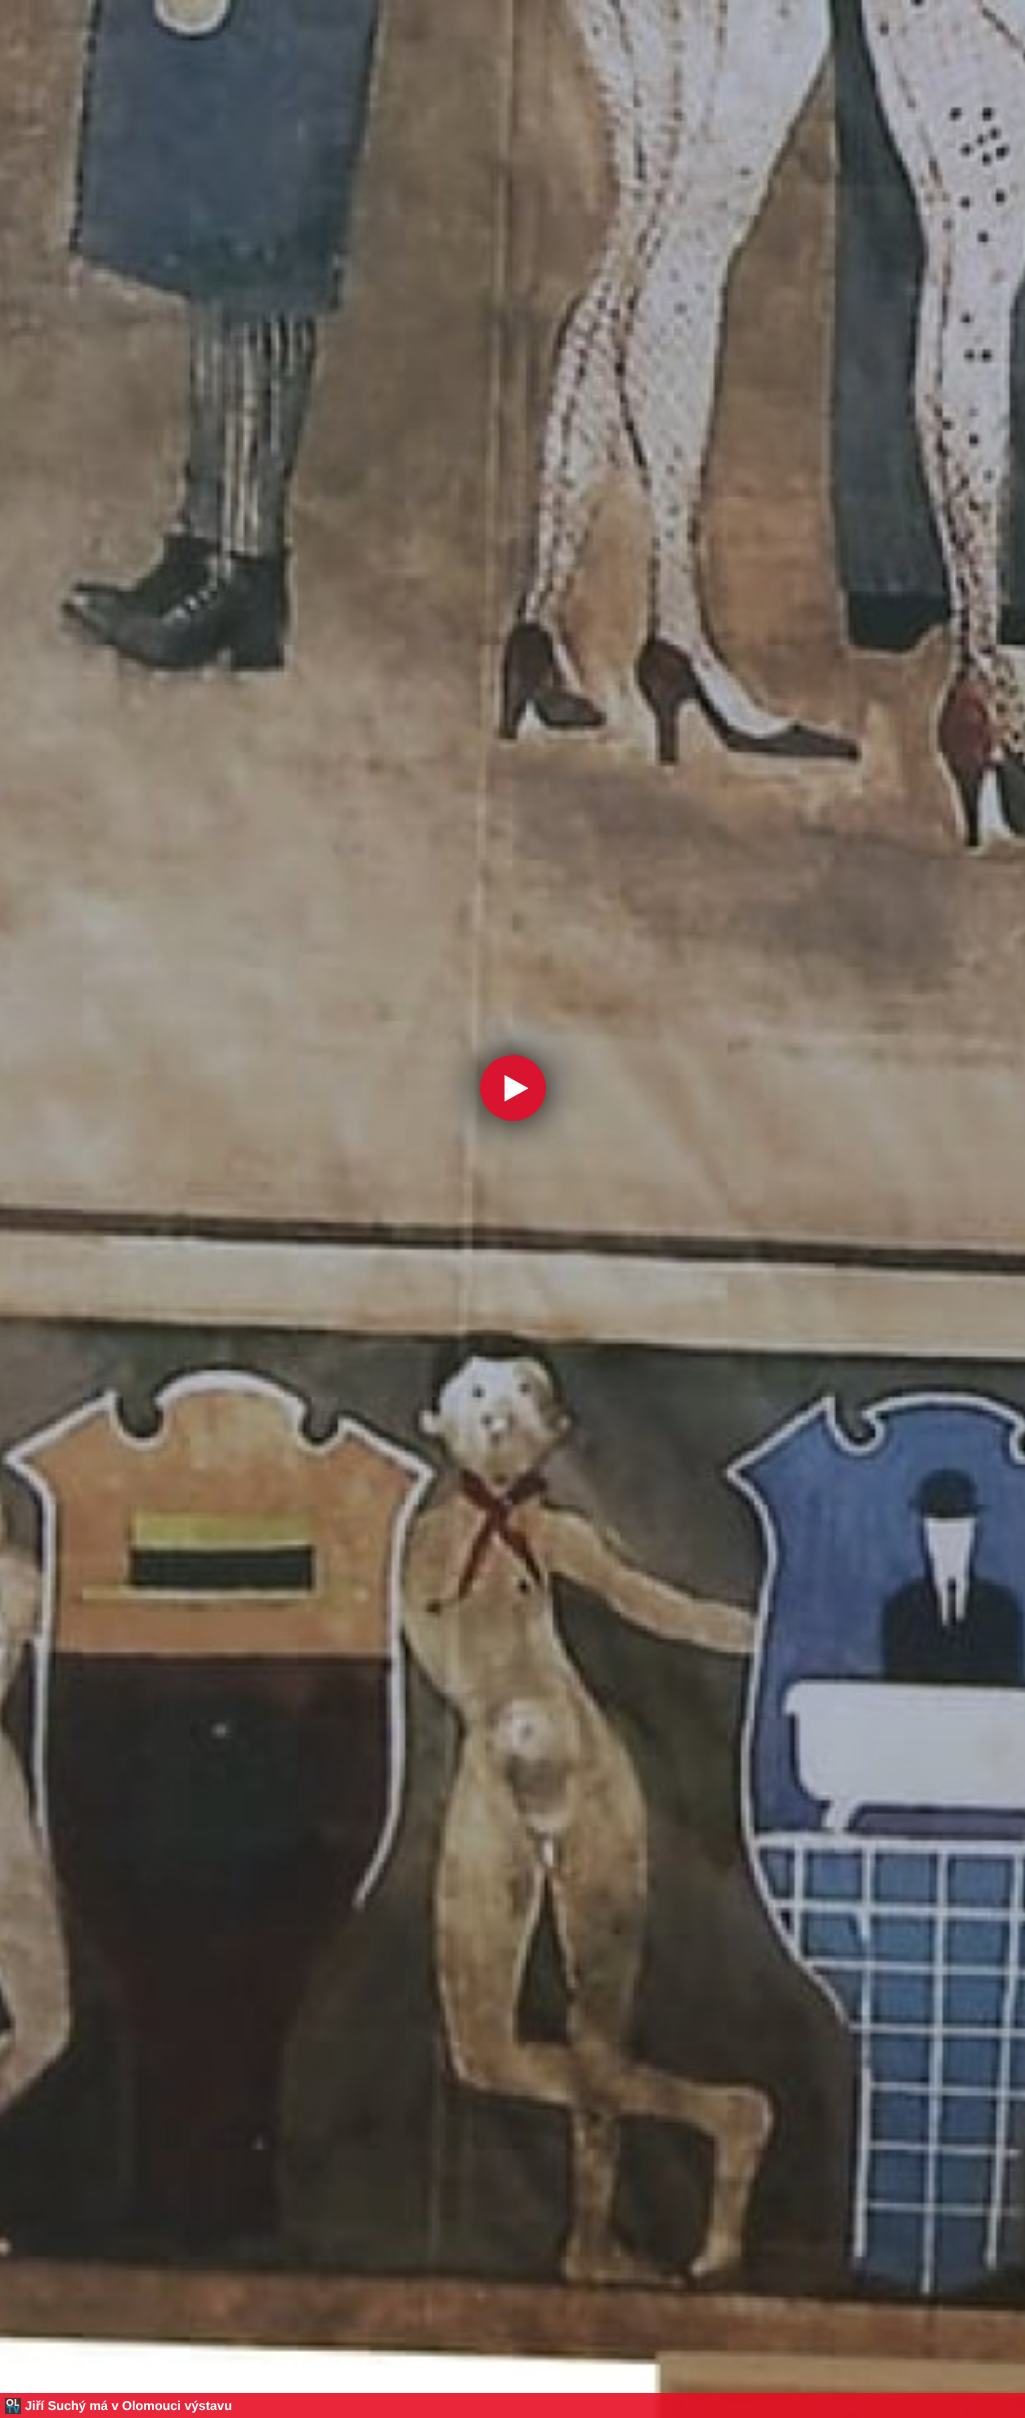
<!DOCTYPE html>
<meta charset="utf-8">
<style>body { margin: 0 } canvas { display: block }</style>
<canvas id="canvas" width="1025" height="2418"></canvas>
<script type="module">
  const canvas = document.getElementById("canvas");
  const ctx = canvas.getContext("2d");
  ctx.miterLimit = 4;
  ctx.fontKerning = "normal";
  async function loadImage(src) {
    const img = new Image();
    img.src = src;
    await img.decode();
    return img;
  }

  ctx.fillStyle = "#ffffff";
  ctx.fillRect(0, 0, 1025, 2418);
  ctx.drawImage(await loadImage("img1.png"), 0, 0, 1025, 2418);
  ctx.fillStyle = "#000000";
  ctx.filter = "blur(20px)";
  ctx.beginPath();
  ctx.roundRect(480, 1055, 66, 66, 33);
  ctx.fill();
  ctx.filter = "none";
  ctx.fillStyle = "#d91430";
  ctx.beginPath();
  ctx.arc(513, 1088, 33, 0, Math.PI * 2);
  ctx.fill();
  ctx.drawImage(await loadImage("img2.png"), 504, 1075, 24, 27);
  ctx.fillStyle = "rgba(231, 14, 37, 0.9)";
  ctx.fillRect(0, 2393, 1025, 25);
  ctx.drawImage(await loadImage("img3.png"), 5, 2398, 16, 16);
  ctx.font = "bold 12.75px Liberation Sans";
  ctx.fillStyle = "#ffffff";
  ctx.fillText("Jiří Suchý má v Olomouci výstavu", 25, 2410);
</script>
